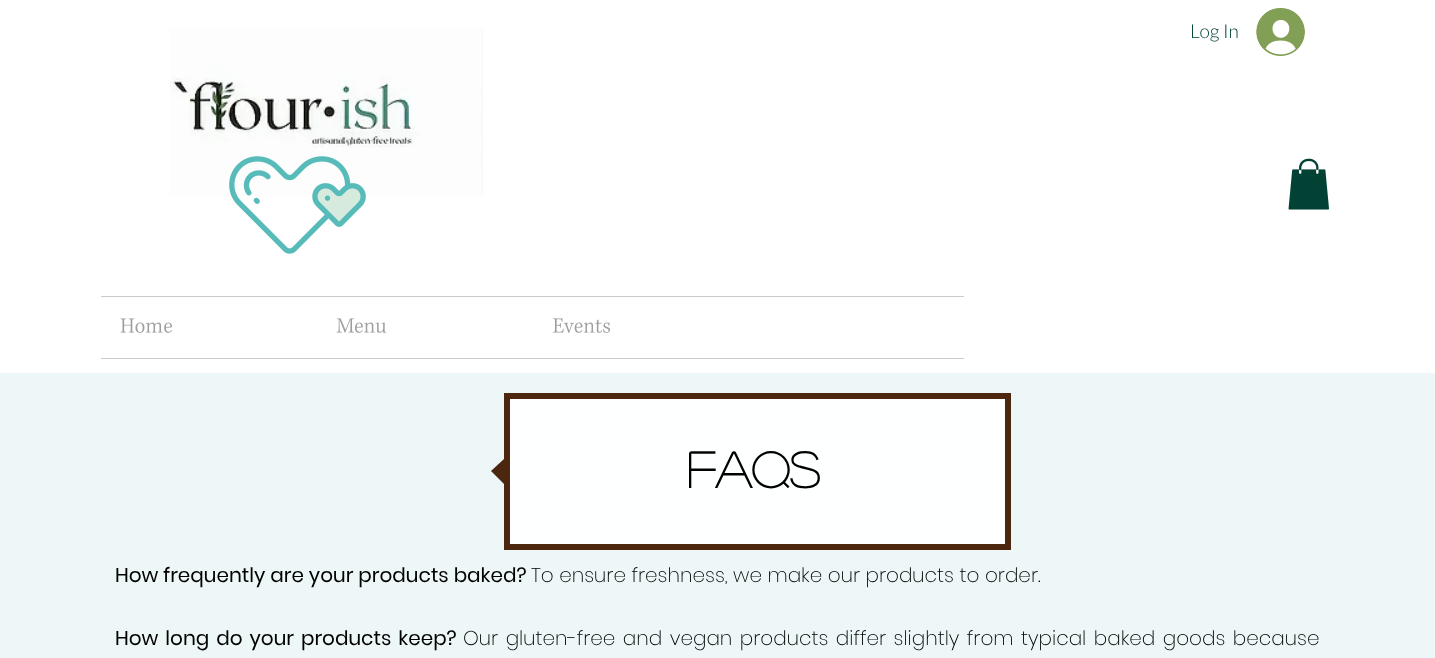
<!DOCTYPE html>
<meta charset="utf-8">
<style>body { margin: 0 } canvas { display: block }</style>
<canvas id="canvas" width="1435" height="658"></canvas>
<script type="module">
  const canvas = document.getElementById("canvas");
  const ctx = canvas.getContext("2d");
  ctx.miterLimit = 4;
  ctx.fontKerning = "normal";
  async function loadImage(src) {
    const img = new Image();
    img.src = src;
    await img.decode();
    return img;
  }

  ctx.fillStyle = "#edf7f7";
  ctx.fillRect(0, 0, 1435, 658);
  ctx.fillStyle = "#ffffff";
  ctx.fillRect(0, 0, 1435, 373);
  ctx.drawImage(await loadImage("img1.png"), 170, 28, 313, 167);
  ctx.font = "300 19px Lato";
  ctx.fillStyle = "#014235";
  ctx.fillText("Log In", 1190, 38);
  ctx.drawImage(await loadImage("img2.png"), 1256, 8, 49, 48);
  ctx.drawImage(await loadImage("img3.png"), 229, 156, 137, 98);
  ctx.drawImage(await loadImage("img4.png"), 1288, 158, 41, 52);
  ctx.fillStyle = "#cacaca";
  ctx.fillRect(101, 296, 863, 1);
  ctx.fillRect(101, 358, 863, 1);
  ctx.drawImage(await loadImage("img5.png"), 120, 318, 52, 15);
  ctx.drawImage(await loadImage("img6.png"), 336, 318, 51, 15);
  ctx.drawImage(await loadImage("img7.png"), 553, 318, 57, 15);
  ctx.fillStyle = "#feffff";
  ctx.beginPath();
  ctx.rect(507, 396, 501, 151);
  ctx.fill();
  ctx.strokeStyle = "#4d2610";
  ctx.lineWidth = 6;
  ctx.stroke();
  ctx.fillStyle = "#4d2610";
  ctx.beginPath();
  ctx.moveTo(504, 459);
  ctx.lineTo(504, 484);
  ctx.lineTo(491, 471);
  ctx.closePath();
  ctx.fill();
  ctx.font = "bold 50px 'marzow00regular'";
  ctx.fillStyle = "#000000";
  ctx.fillText("FAQs", 687, 488);
  ctx.font = "20px Poppins";
  ctx.fillText("How frequently are your products baked?", 115, 582);
  ctx.font = "200 20px Poppins";
  ctx.fillText("To ensure freshness, we make our products to order.", 531, 582);
  ctx.wordSpacing = "2px";
  ctx.font = "20px Poppins";
  ctx.fillText("How long do your products keep?", 115, 645);
  ctx.font = "200 20px Poppins";
  ctx.fillText("Our gluten-free and vegan products differ slightly from typical baked goods because", 463, 645);
</script>
